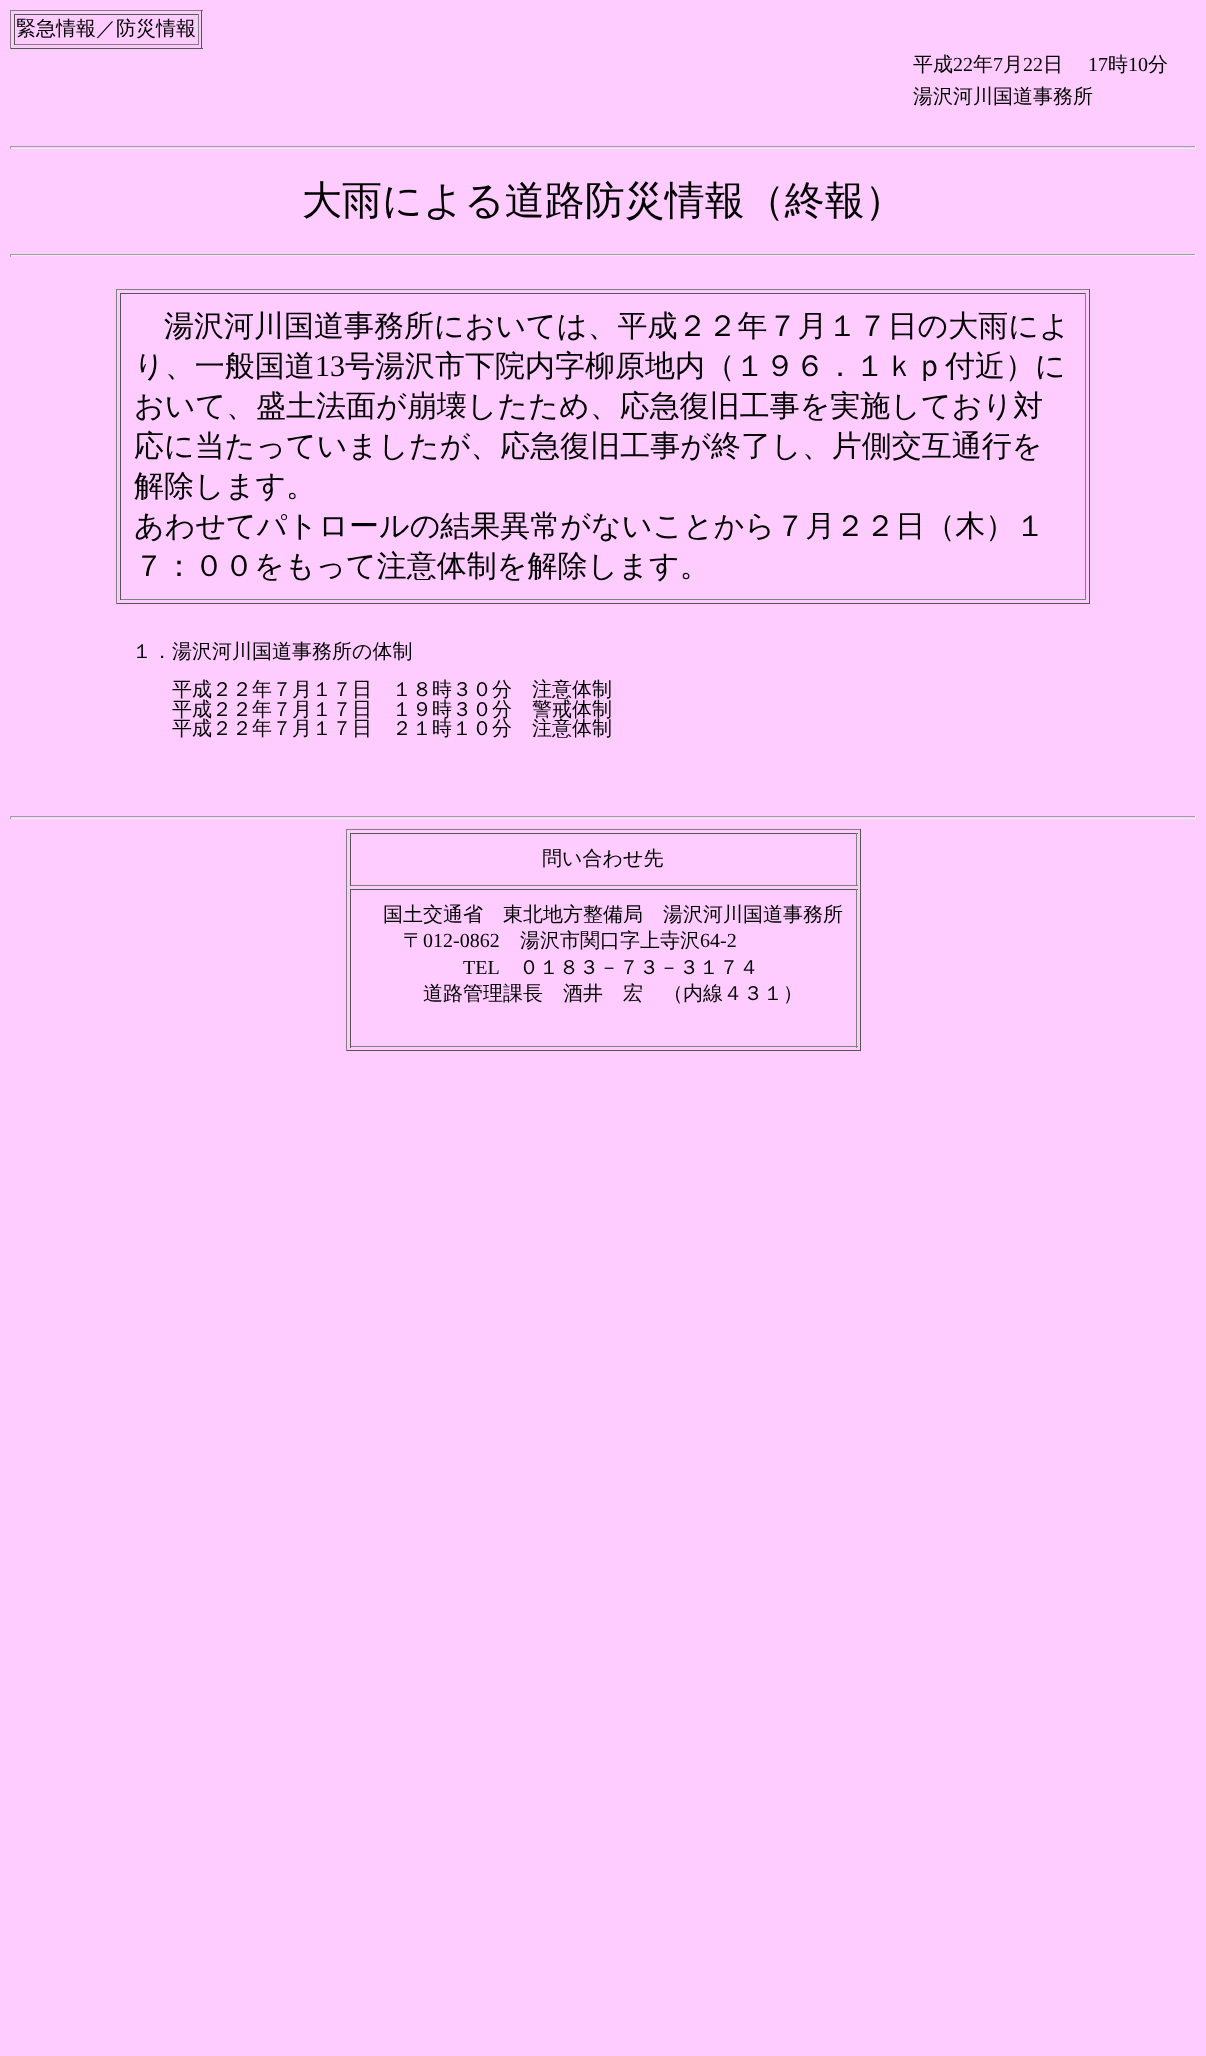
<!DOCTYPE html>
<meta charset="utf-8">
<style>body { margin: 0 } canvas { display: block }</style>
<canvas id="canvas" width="1206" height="2056"></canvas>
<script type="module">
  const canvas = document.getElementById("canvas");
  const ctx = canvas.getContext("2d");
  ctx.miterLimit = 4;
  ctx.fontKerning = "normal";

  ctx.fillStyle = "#ffccff";
  ctx.fillRect(0, 0, 1206, 2056);
  ctx.fillStyle = "#808080";
  ctx.fillRect(10, 10, 193, 1);
  ctx.fillStyle = "#555555";
  ctx.fillRect(201, 10, 1, 39);
  ctx.fillRect(10, 48, 193, 1);
  ctx.fillStyle = "#808080";
  ctx.fillRect(10, 10, 1, 39);
  ctx.fillStyle = "#555555";
  ctx.fillRect(14, 14, 185, 1);
  ctx.fillStyle = "#808080";
  ctx.fillRect(198, 14, 1, 31);
  ctx.fillRect(14, 44, 185, 1);
  ctx.fillStyle = "#555555";
  ctx.fillRect(14, 14, 1, 31);
  ctx.font = "500 20px WenQuanYi Zen Hei";
  ctx.fillStyle = "#000000";
  ctx.fillText("緊急情報／防災情報", 16, 35);
  ctx.fillText("平成", 913, 71);
  ctx.font = "20px Liberation Serif";
  ctx.fillText("22", 953, 71);
  ctx.font = "500 20px WenQuanYi Zen Hei";
  ctx.fillText("年", 973, 71);
  ctx.font = "20px Liberation Serif";
  ctx.fillText("7", 993, 71);
  ctx.font = "500 20px WenQuanYi Zen Hei";
  ctx.fillText("月", 1003, 71);
  ctx.font = "20px Liberation Serif";
  ctx.fillText("22", 1023, 71);
  ctx.font = "500 20px WenQuanYi Zen Hei";
  ctx.fillText("日", 1043, 71);
  ctx.font = "20px Liberation Serif";
  ctx.fillText("17", 1088, 71);
  ctx.font = "500 20px WenQuanYi Zen Hei";
  ctx.fillText("時", 1108, 71);
  ctx.font = "20px Liberation Serif";
  ctx.fillText("10", 1128, 71);
  ctx.font = "500 20px WenQuanYi Zen Hei";
  ctx.fillText("分", 1148, 71);
  ctx.fillText("湯沢河川国道事務所", 913, 103);
  ctx.fillStyle = "#9f9f9f";
  ctx.fillRect(10, 146, 1186, 1);
  ctx.fillStyle = "#eeeeee";
  ctx.fillRect(1195, 146, 1, 3);
  ctx.fillRect(10, 148, 1186, 1);
  ctx.fillStyle = "#9f9f9f";
  ctx.fillRect(10, 146, 1, 3);
  ctx.font = "500 40px WenQuanYi Zen Hei";
  ctx.fillStyle = "#000000";
  ctx.fillText("大雨による道路防災情報（終報）", 302, 214);
  ctx.fillStyle = "#9f9f9f";
  ctx.fillRect(10, 254, 1186, 1);
  ctx.fillStyle = "#eeeeee";
  ctx.fillRect(1195, 254, 1, 3);
  ctx.fillRect(10, 255, 1186, 1);
  ctx.fillStyle = "#9f9f9f";
  ctx.fillRect(10, 254, 1, 3);
  ctx.fillStyle = "#808080";
  ctx.fillRect(116, 289, 974, 1);
  ctx.fillStyle = "#555555";
  ctx.fillRect(1089, 289, 1, 315);
  ctx.fillRect(116, 603, 974, 1);
  ctx.fillStyle = "#808080";
  ctx.fillRect(116, 289, 1, 315);
  ctx.fillStyle = "#555555";
  ctx.fillRect(120, 293, 966, 1);
  ctx.fillStyle = "#808080";
  ctx.fillRect(1085, 293, 1, 307);
  ctx.fillRect(120, 599, 966, 1);
  ctx.fillStyle = "#555555";
  ctx.fillRect(120, 293, 1, 307);
  ctx.font = "500 30px WenQuanYi Zen Hei";
  ctx.fillStyle = "#000000";
  ctx.fillText("湯沢河川国道事務所においては、平成２２年７月１７日の大雨によ", 164, 336);
  ctx.fillText("り、一般国道", 134, 376);
  ctx.font = "30px Liberation Serif";
  ctx.fillText("13", 315, 376);
  ctx.font = "500 30px WenQuanYi Zen Hei";
  ctx.fillText("号湯沢市下院内字柳原地内（１９６．１ｋｐ付近）に", 345, 376);
  ctx.fillText("おいて、盛土法面が崩壊したため、応急復旧工事を実施しており対", 134, 416);
  ctx.fillText("応に当たっていましたが、応急復旧工事が終了し、片側交互通行を", 134, 456);
  ctx.fillText("解除します。", 134, 496);
  ctx.fillText("あわせてパトロールの結果異常がないことから７月２２日（木）１", 134, 536);
  ctx.fillText("７：００をもって注意体制を解除します。", 134, 576);
  ctx.font = "500 20px WenQuanYi Zen Hei";
  ctx.fillText("１．湯沢河川国道事務所の体制", 132, 658);
  ctx.fillText("平成２２年７月１７日", 172, 696);
  ctx.fillText("１８時３０分", 392, 696);
  ctx.fillText("注意体制", 532, 696);
  ctx.fillText("平成２２年７月１７日", 172, 716);
  ctx.fillText("１９時３０分", 392, 716);
  ctx.fillText("警戒体制", 532, 716);
  ctx.fillText("平成２２年７月１７日", 172, 735);
  ctx.fillText("２１時１０分", 392, 735);
  ctx.fillText("注意体制", 532, 735);
  ctx.fillStyle = "#9f9f9f";
  ctx.fillRect(10, 816, 1186, 1);
  ctx.fillStyle = "#eeeeee";
  ctx.fillRect(1195, 816, 1, 3);
  ctx.fillRect(10, 818, 1186, 1);
  ctx.fillStyle = "#9f9f9f";
  ctx.fillRect(10, 816, 1, 3);
  ctx.fillStyle = "#808080";
  ctx.fillRect(346, 829, 515, 1);
  ctx.fillStyle = "#555555";
  ctx.fillRect(860, 829, 1, 222);
  ctx.fillRect(346, 1050, 515, 1);
  ctx.fillStyle = "#808080";
  ctx.fillRect(346, 829, 1, 222);
  ctx.fillStyle = "#555555";
  ctx.fillRect(350, 833, 508, 1);
  ctx.fillStyle = "#808080";
  ctx.fillRect(856, 833, 1, 53);
  ctx.fillRect(350, 885, 508, 1);
  ctx.fillStyle = "#555555";
  ctx.fillRect(350, 833, 1, 53);
  ctx.fillStyle = "#000000";
  ctx.fillText("問い合わせ先", 542, 865);
  ctx.fillStyle = "#555555";
  ctx.fillRect(350, 889, 508, 1);
  ctx.fillStyle = "#808080";
  ctx.fillRect(856, 889, 1, 159);
  ctx.fillRect(350, 1046, 508, 1);
  ctx.fillStyle = "#555555";
  ctx.fillRect(350, 889, 1, 159);
  ctx.fillStyle = "#000000";
  ctx.fillText("国土交通省", 383, 921);
  ctx.fillText("東北地方整備局", 503, 921);
  ctx.fillText("湯沢河川国道事務所", 663, 921);
  ctx.fillText("〒", 403, 947);
  ctx.font = "20px Liberation Serif";
  ctx.fillText("012-0862", 423, 947);
  ctx.font = "500 20px WenQuanYi Zen Hei";
  ctx.fillText("湯沢市関口字上寺沢", 520, 947);
  ctx.font = "20px Liberation Serif";
  ctx.fillText("64-2", 700, 947);
  ctx.fillText("TEL", 463, 974);
  ctx.font = "500 20px WenQuanYi Zen Hei";
  ctx.fillText("０１８３－７３－３１７４", 519, 974);
  ctx.fillText("道路管理課長", 423, 1000);
  ctx.fillText("酒井", 563, 1000);
  ctx.fillText("宏", 623, 1000);
  ctx.fillText("（内線４３１）", 663, 1000);
</script>
